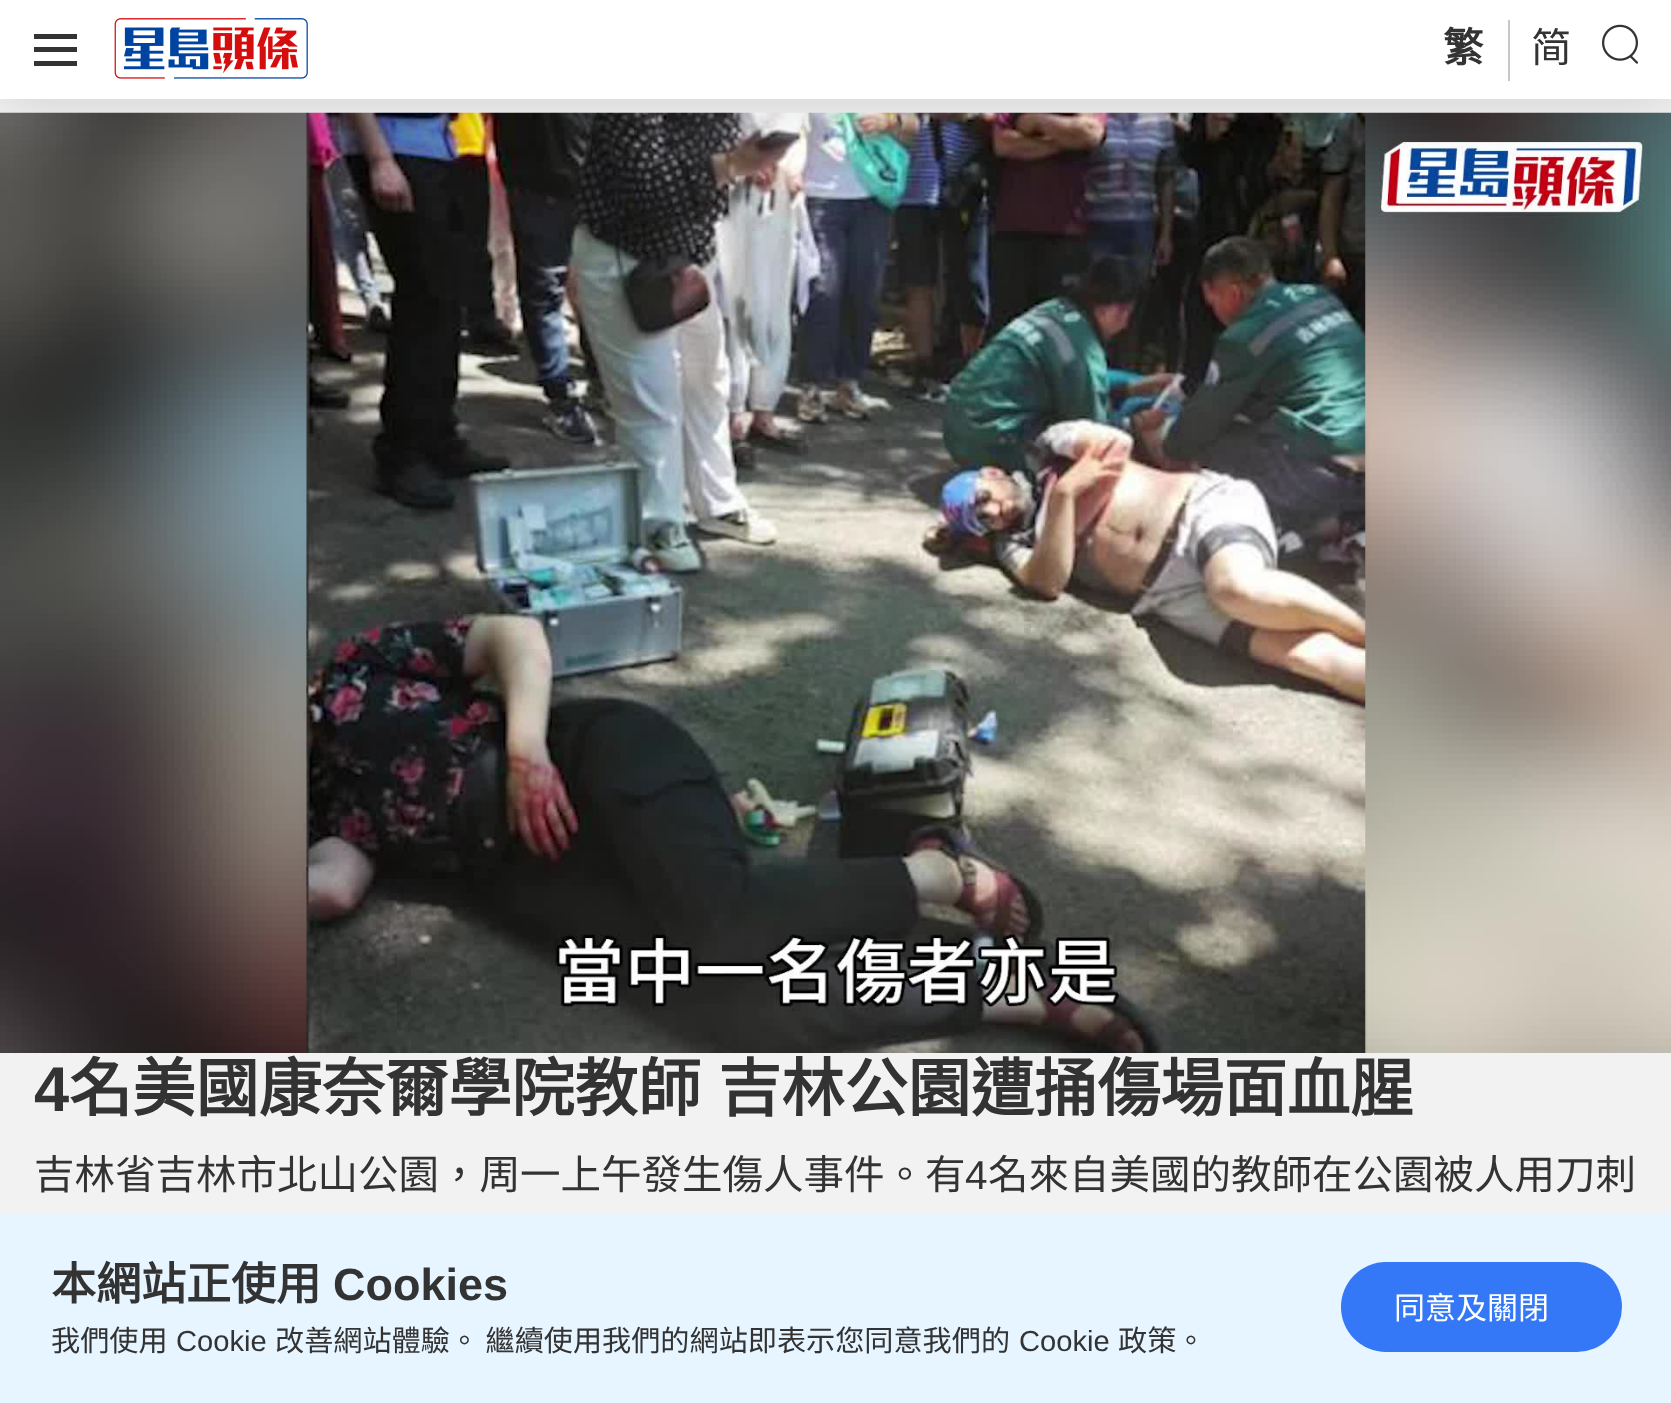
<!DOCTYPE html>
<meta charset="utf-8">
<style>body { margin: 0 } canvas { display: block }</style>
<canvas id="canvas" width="1671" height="1403"></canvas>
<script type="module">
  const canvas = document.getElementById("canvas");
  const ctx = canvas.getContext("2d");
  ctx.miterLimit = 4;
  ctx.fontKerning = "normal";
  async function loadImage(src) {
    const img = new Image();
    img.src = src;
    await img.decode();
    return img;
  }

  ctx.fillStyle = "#f2f2f2";
  ctx.fillRect(0, 0, 1671, 1403);
  ctx.drawImage(await loadImage("img3.png"), 0, 112, 1671, 941);
  ctx.fillStyle = "rgba(0, 0, 0, 0.15)";
  ctx.filter = "blur(27px)";
  ctx.beginPath();
  ctx.rect(0, 2, 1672, 99);
  ctx.fill();
  ctx.filter = "none";
  ctx.fillStyle = "#ffffff";
  ctx.fillRect(0, 0, 1671, 99);
  ctx.fillStyle = "#333333";
  ctx.fillRect(34, 34, 43, 5);
  ctx.fillRect(34, 47, 43, 5);
  ctx.fillRect(34, 61, 43, 5);
  ctx.drawImage(await loadImage("img1.png"), 114, 18, 194, 61);
  ctx.fillStyle = "#c7c7c7";
  ctx.fillRect(1508, 20, 2, 61);
  ctx.font = "bold 40.5px Noto Sans CJK HK";
  ctx.fillStyle = "#333333";
  ctx.fillText("繁", 1443, 62);
  ctx.font = "40.5px Noto Sans CJK HK";
  ctx.fillText("简", 1531, 62);
  ctx.drawImage(await loadImage("img2.png"), 1602, 24, 37, 40);
  ctx.font = "bold 63.2px Liberation Sans";
  ctx.fillText("4", 34, 1111);
  ctx.wordSpacing = "3px";
  ctx.font = "bold 63.2px Noto Sans CJK HK";
  ctx.fillText("名美國康奈爾學院教師 吉林公園遭捅傷場面血腥", 69, 1111);
  ctx.wordSpacing = "0px";
  ctx.font = "40.5px Noto Sans CJK HK";
  ctx.fillText("吉林省吉林市北山公園，周一上午發生傷人事件。有", 34, 1189);
  ctx.font = "40.5px Liberation Sans";
  ctx.fillText("4", 965, 1189);
  ctx.font = "40.5px Noto Sans CJK HK";
  ctx.fillText("名來自美國的教師在公園被人用刀刺", 988, 1189);
  ctx.fillStyle = "#e6f5ff";
  ctx.fillRect(0, 1213, 1671, 190);
  ctx.font = "bold 45px Noto Sans CJK HK";
  ctx.fillStyle = "#333333";
  ctx.fillText("本網站正使用", 51, 1300);
  ctx.font = "bold 45px Liberation Sans";
  ctx.fillText("Cookies", 333, 1300);
  ctx.font = "29.15px Noto Sans CJK HK";
  ctx.fillText("我們使用", 51, 1351);
  ctx.font = "29.15px Liberation Sans";
  ctx.fillText("Cookie", 176, 1351);
  ctx.font = "29.15px Noto Sans CJK HK";
  ctx.fillText("改善網站體驗。 繼續使用我們的網站即表示您同意我們的", 275, 1351);
  ctx.font = "29.15px Liberation Sans";
  ctx.fillText("Cookie", 1019, 1351);
  ctx.font = "29.15px Noto Sans CJK HK";
  ctx.fillText("政策。", 1118, 1351);
  ctx.fillStyle = "#3478f7";
  ctx.beginPath();
  ctx.roundRect(1341, 1262, 281, 90, 45);
  ctx.fill();
  ctx.font = "31px Noto Sans CJK HK";
  ctx.fillStyle = "#ffffff";
  ctx.fillText("同意及關閉", 1394, 1319);
</script>
